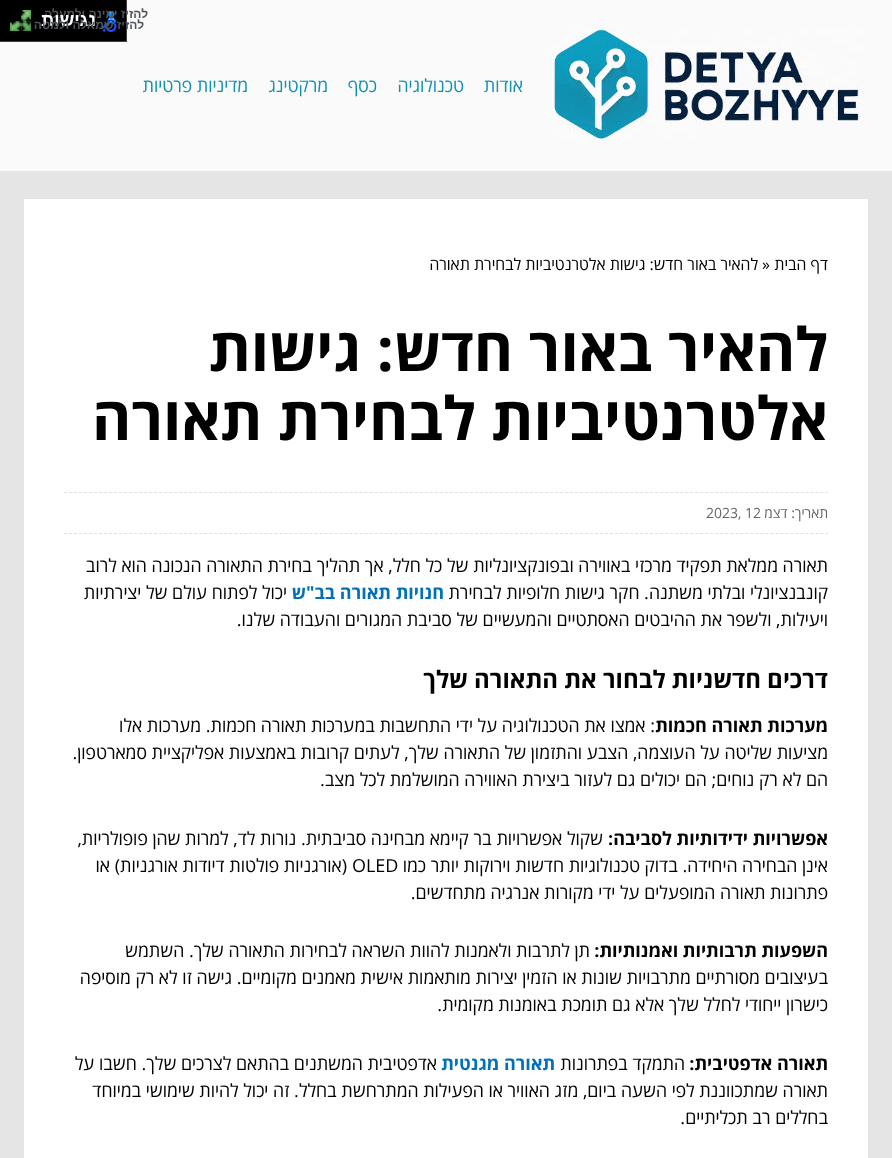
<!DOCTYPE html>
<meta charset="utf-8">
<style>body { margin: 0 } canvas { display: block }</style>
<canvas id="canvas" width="892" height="1158"></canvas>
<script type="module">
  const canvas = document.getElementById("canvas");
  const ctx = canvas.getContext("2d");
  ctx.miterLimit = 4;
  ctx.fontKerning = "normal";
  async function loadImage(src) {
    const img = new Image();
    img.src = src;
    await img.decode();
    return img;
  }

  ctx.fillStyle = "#e5e5e5";
  ctx.fillRect(0, 0, 892, 1158);
  ctx.fillStyle = "#fafafa";
  ctx.fillRect(0, 0, 892, 171);
  ctx.fillStyle = "#000000";
  ctx.fillRect(0, 0, 126, 41);
  ctx.save();
  ctx.beginPath();
  ctx.rect(0, 0, 127, 42);
  ctx.clip();
  ctx.fillStyle = "#404040";
  ctx.beginPath();
  ctx.moveTo(-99, -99);
  ctx.lineTo(226, -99);
  ctx.lineTo(226, 141);
  ctx.lineTo(-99, 141);
  ctx.closePath();
  ctx.moveTo(-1, -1);
  ctx.lineTo(126, -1);
  ctx.lineTo(126, 41);
  ctx.lineTo(-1, 41);
  ctx.closePath();
  ctx.fill("evenodd");
  ctx.restore();
  ctx.drawImage(await loadImage("img1.png"), 21, 10, 10, 11);
  ctx.drawImage(await loadImage("img4.png"), 102, 11, 15, 21);
  ctx.direction = "rtl";
  ctx.font = "bold 12px Liberation Sans";
  ctx.fillStyle = "#50555a";
  ctx.fillText("להזיז ימינה ולמעלה", 148, 18);
  ctx.drawImage(await loadImage("img2.png"), 10, 21, 11, 10);
  ctx.font = "bold 18px Liberation Sans";
  ctx.fillStyle = "#ffffff";
  ctx.fillText("נגישות", 96, 26);
  ctx.font = "bold 12px Liberation Sans";
  ctx.fillStyle = "#50555a";
  ctx.fillText("להזיז שמאלה ולמטה", 144, 29);
  ctx.drawImage(await loadImage("img3.png"), 21, 21, 10, 10);
  ctx.drawImage(await loadImage("img5.png"), 551, 28, 312, 112);
  ctx.font = "18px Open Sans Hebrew";
  ctx.fillStyle = "#1291b2";
  ctx.fillText("אודות", 523, 92);
  ctx.fillText("טכנולוגיה", 464, 92);
  ctx.fillText("כסף", 377, 92);
  ctx.fillText("מרקטינג", 328, 92);
  ctx.fillText("מדיניות פרטיות", 248, 92);
  ctx.fillStyle = "#ffffff";
  ctx.fillRect(24, 199, 844, 959);
  ctx.font = "16px Open Sans Hebrew";
  ctx.fillStyle = "#000000";
  ctx.fillText("דף הבית", 828, 270);
  ctx.direction = "ltr";
  ctx.fillText("»", 762, 270);
  ctx.direction = "rtl";
  ctx.fillText("להאיר באור חדש: גישות אלטרנטיביות לבחירת תאורה", 758, 270);
  ctx.font = "bold 60px Open Sans Hebrew";
  ctx.fillText("להאיר באור חדש: גישות", 828, 371);
  ctx.fillText("אלטרנטיביות לבחירת תאורה", 828, 440);
  ctx.beginPath();
  ctx.moveTo(64, 492.5);
  ctx.lineTo(828, 492.5);
  ctx.strokeStyle = "#e0e0e0";
  ctx.setLineDash([3, 2.01]);
  ctx.stroke();
  ctx.beginPath();
  ctx.moveTo(64, 533.5);
  ctx.lineTo(828, 533.5);
  ctx.stroke();
  ctx.font = "14px Open Sans Hebrew";
  ctx.fillStyle = "#666666";
  ctx.fillText("תאריך: דצמ", 828, 518);
  ctx.direction = "ltr";
  ctx.fillText("2023, 12", 706, 518);
  ctx.direction = "rtl";
  ctx.font = "18px Open Sans Hebrew";
  ctx.fillStyle = "#000000";
  ctx.fillText("תאורה ממלאת תפקיד מרכזי באווירה ובפונקציונליות של כל חלל, אך תהליך בחירת התאורה הנכונה הוא לרוב", 828, 572);
  ctx.fillText("קונבנציונלי ובלתי משתנה. חקר גישות חלופיות לבחירת", 828, 599);
  ctx.font = "bold 18px Open Sans Hebrew";
  ctx.fillStyle = "#0170b9";
  ctx.fillText("חנויות תאורה בב\"ש", 444, 599);
  ctx.font = "18px Open Sans Hebrew";
  ctx.fillStyle = "#000000";
  ctx.fillText("יכול לפתוח עולם של יצירתיות", 287, 599);
  ctx.fillText("ויעילות, ולשפר את ההיבטים האסתטיים והמעשיים של סביבת המגורים והעבודה שלנו.", 828, 626);
  ctx.font = "bold 24px Open Sans Hebrew";
  ctx.fillText("דרכים חדשניות לבחור את התאורה שלך", 828, 688);
  ctx.font = "bold 18px Open Sans Hebrew";
  ctx.fillText("מערכות תאורה חכמות", 828, 732);
  ctx.font = "18px Open Sans Hebrew";
  ctx.fillText(": אמצו את הטכנולוגיה על ידי התחשבות במערכות תאורה חכמות. מערכות אלו", 655, 732);
  ctx.fillText("מציעות שליטה על העוצמה, הצבע והתזמון של התאורה שלך, לעתים קרובות באמצעות אפליקציית סמארטפון.", 828, 759);
  ctx.fillText("הם לא רק נוחים; הם יכולים גם לעזור ביצירת האווירה המושלמת לכל מצב.", 828, 786);
  ctx.font = "bold 18px Open Sans Hebrew";
  ctx.fillText("אפשרויות ידידותיות לסביבה:", 828, 845);
  ctx.font = "18px Open Sans Hebrew";
  ctx.fillText("שקול אפשרויות בר קיימא מבחינה סביבתית. נורות לד, למרות שהן פופולריות,", 603, 845);
  ctx.fillText("אינן הבחירה היחידה. בדוק טכנולוגיות חדשות וירוקות יותר כמו", 828, 872);
  ctx.direction = "ltr";
  ctx.fillText("OLED", 352, 872);
  ctx.direction = "rtl";
  ctx.fillText("(אורגניות פולטות דיודות אורגניות) או", 347, 872);
  ctx.fillText("פתרונות תאורה המופעלים על ידי מקורות אנרגיה מתחדשים.", 828, 899);
  ctx.font = "bold 18px Open Sans Hebrew";
  ctx.fillText("השפעות תרבותיות ואמנותיות:", 828, 957);
  ctx.font = "18px Open Sans Hebrew";
  ctx.fillText("תן לתרבות ולאמנות להוות השראה לבחירות התאורה שלך. השתמש", 590, 957);
  ctx.fillText("בעיצובים מסורתיים מתרבויות שונות או הזמין יצירות מותאמות אישית מאמנים מקומיים. גישה זו לא רק מוסיפה", 828, 984);
  ctx.fillText("כישרון ייחודי לחלל שלך אלא גם תומכת באומנות מקומית.", 828, 1011);
  ctx.font = "bold 18px Open Sans Hebrew";
  ctx.fillText("תאורה אדפטיבית:", 828, 1070);
  ctx.font = "18px Open Sans Hebrew";
  ctx.fillText("התמקד בפתרונות", 685, 1070);
  ctx.font = "bold 18px Open Sans Hebrew";
  ctx.fillStyle = "#0170b9";
  ctx.fillText("תאורה מגנטית", 555, 1070);
  ctx.font = "18px Open Sans Hebrew";
  ctx.fillStyle = "#000000";
  ctx.fillText("אדפטיבית המשתנים בהתאם לצרכים שלך. חשבו על", 437, 1070);
  ctx.fillText("תאורה שמתכווננת לפי השעה ביום, מזג האוויר או הפעילות המתרחשת בחלל. זה יכול להיות שימושי במיוחד", 828, 1097);
  ctx.fillText("בחללים רב תכליתיים.", 828, 1124);
</script>
